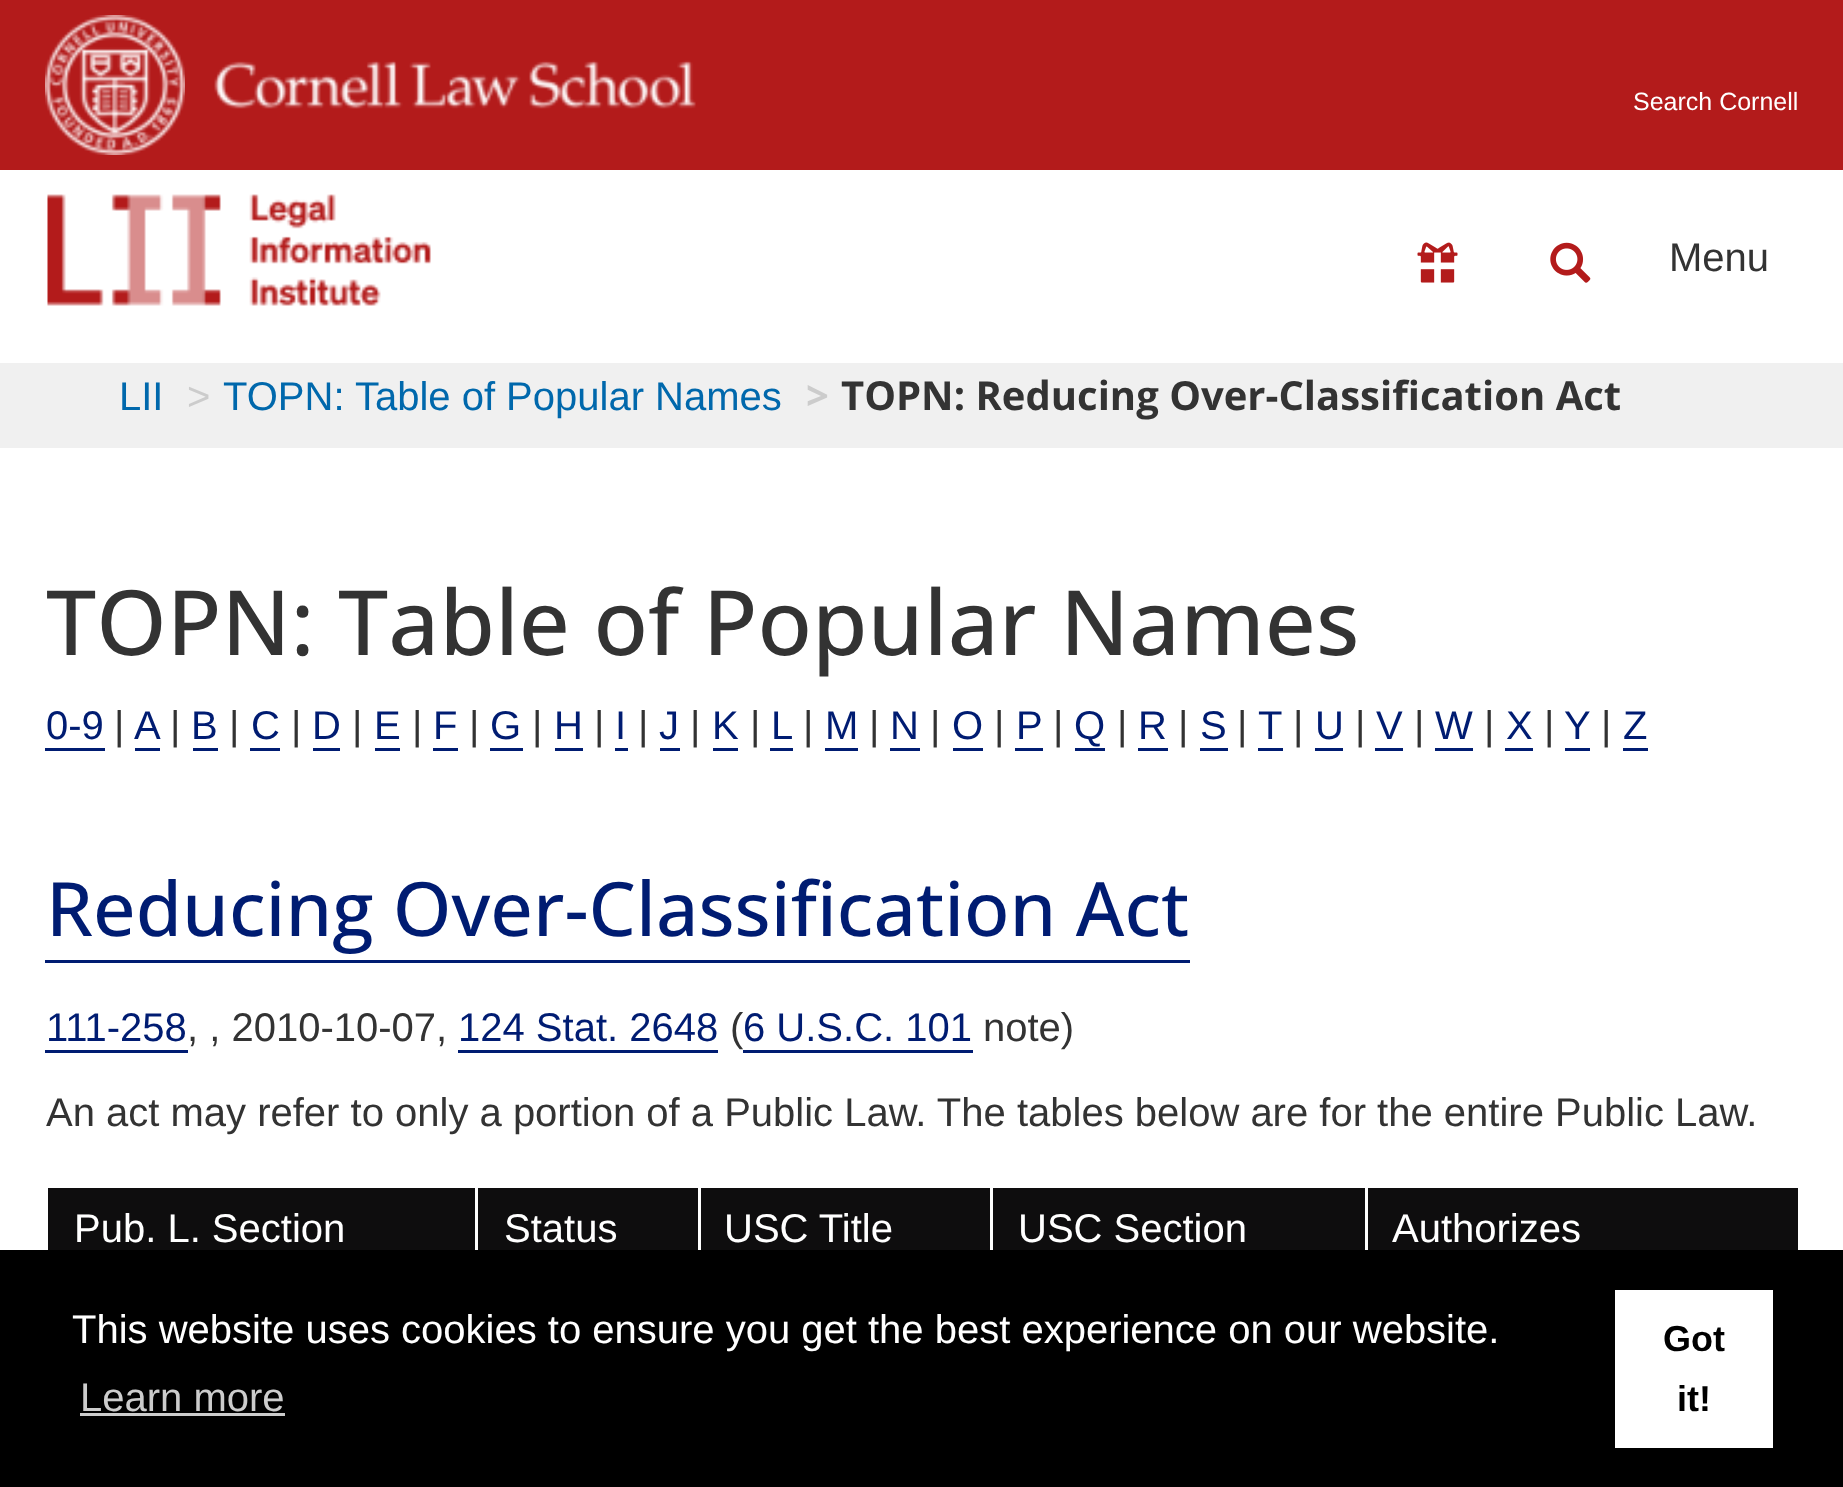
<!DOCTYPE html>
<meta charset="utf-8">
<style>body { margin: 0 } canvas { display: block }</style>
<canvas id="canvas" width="1843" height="1487"></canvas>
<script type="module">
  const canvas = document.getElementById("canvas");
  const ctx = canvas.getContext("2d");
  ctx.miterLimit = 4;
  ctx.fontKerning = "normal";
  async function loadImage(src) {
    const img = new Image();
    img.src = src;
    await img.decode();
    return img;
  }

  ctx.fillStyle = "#ffffff";
  ctx.fillRect(0, 0, 1843, 1487);
  ctx.fillStyle = "#b31b1b";
  ctx.fillRect(0, 0, 1843, 170);
  ctx.drawImage(await loadImage("img1.png"), 45, 15, 140, 140);
  ctx.drawImage(await loadImage("img2.png"), 214, 60, 482, 49);
  ctx.font = "25px Liberation Sans";
  ctx.fillStyle = "#ffffff";
  ctx.fillText("Search Cornell", 1633, 110);
  ctx.drawImage(await loadImage("img3.png"), 47, 194, 384, 112);
  ctx.drawImage(await loadImage("img4.png"), 1417, 242, 41, 41);
  ctx.drawImage(await loadImage("img5.png"), 1550, 242, 41, 41);
  ctx.font = "40px Liberation Sans";
  ctx.fillStyle = "#333333";
  ctx.fillText("Menu", 1669, 271);
  ctx.fillStyle = "#f0f0f0";
  ctx.fillRect(0, 363, 1843, 85);
  ctx.fillStyle = "#0068ac";
  ctx.fillText("LII", 119, 410);
  ctx.fillStyle = "#cccccc";
  ctx.fillText(">", 187, 410);
  ctx.fillStyle = "#0068ac";
  ctx.fillText("TOPN: Table of Popular Names", 223, 410);
  ctx.font = "bold 40px Open Sans";
  ctx.fillStyle = "#cccccc";
  ctx.fillText(">", 806, 410);
  ctx.fillStyle = "#333333";
  ctx.fillText("TOPN: Reducing Over-Classification Act", 841, 410);
  ctx.font = "500 90px Open Sans";
  ctx.fillText("TOPN: Table of Popular Names", 46, 655);
  ctx.font = "40px Liberation Sans";
  ctx.fillStyle = "#001c72";
  ctx.fillText("0-9", 46, 739);
  ctx.fillRect(45, 748, 60, 3);
  ctx.fillStyle = "#333333";
  ctx.fillText("|", 114, 739);
  ctx.fillStyle = "#001c72";
  ctx.fillText("A", 134, 739);
  ctx.fillRect(135, 748, 25, 3);
  ctx.fillStyle = "#333333";
  ctx.fillText("|", 170, 739);
  ctx.fillStyle = "#001c72";
  ctx.fillText("B", 191, 739);
  ctx.fillRect(193, 748, 25, 3);
  ctx.fillStyle = "#333333";
  ctx.fillText("|", 229, 739);
  ctx.fillStyle = "#001c72";
  ctx.fillText("C", 251, 739);
  ctx.fillRect(250, 748, 30, 3);
  ctx.fillStyle = "#333333";
  ctx.fillText("|", 291, 739);
  ctx.fillStyle = "#001c72";
  ctx.fillText("D", 312, 739);
  ctx.fillRect(313, 748, 27, 3);
  ctx.fillStyle = "#333333";
  ctx.fillText("|", 352, 739);
  ctx.fillStyle = "#001c72";
  ctx.fillText("E", 374, 739);
  ctx.fillRect(375, 748, 25, 3);
  ctx.fillStyle = "#333333";
  ctx.fillText("|", 412, 739);
  ctx.fillStyle = "#001c72";
  ctx.fillText("F", 433, 739);
  ctx.fillRect(433, 748, 25, 3);
  ctx.fillStyle = "#333333";
  ctx.fillText("|", 469, 739);
  ctx.fillStyle = "#001c72";
  ctx.fillText("G", 490, 739);
  ctx.fillRect(490, 748, 33, 3);
  ctx.fillStyle = "#333333";
  ctx.fillText("|", 532, 739);
  ctx.fillStyle = "#001c72";
  ctx.fillText("H", 554, 739);
  ctx.fillRect(555, 748, 28, 3);
  ctx.fillStyle = "#333333";
  ctx.fillText("|", 594, 739);
  ctx.fillStyle = "#001c72";
  ctx.fillText("I", 615, 739);
  ctx.fillRect(615, 748, 13, 3);
  ctx.fillStyle = "#333333";
  ctx.fillText("|", 638, 739);
  ctx.fillStyle = "#001c72";
  ctx.fillText("J", 659, 739);
  ctx.fillRect(660, 748, 20, 3);
  ctx.fillStyle = "#333333";
  ctx.fillText("|", 690, 739);
  ctx.fillStyle = "#001c72";
  ctx.fillText("K", 712, 739);
  ctx.fillRect(713, 748, 25, 3);
  ctx.fillStyle = "#333333";
  ctx.fillText("|", 750, 739);
  ctx.fillStyle = "#001c72";
  ctx.fillText("L", 771, 739);
  ctx.fillRect(770, 748, 23, 3);
  ctx.fillStyle = "#333333";
  ctx.fillText("|", 803, 739);
  ctx.fillStyle = "#001c72";
  ctx.fillText("M", 825, 739);
  ctx.fillRect(825, 748, 33, 3);
  ctx.fillStyle = "#333333";
  ctx.fillText("|", 869, 739);
  ctx.fillStyle = "#001c72";
  ctx.fillText("N", 890, 739);
  ctx.fillRect(890, 748, 30, 3);
  ctx.fillStyle = "#333333";
  ctx.fillText("|", 930, 739);
  ctx.fillStyle = "#001c72";
  ctx.fillText("O", 952, 739);
  ctx.fillRect(953, 748, 30, 3);
  ctx.fillStyle = "#333333";
  ctx.fillText("|", 994, 739);
  ctx.fillStyle = "#001c72";
  ctx.fillText("P", 1016, 739);
  ctx.fillRect(1015, 748, 28, 3);
  ctx.fillStyle = "#333333";
  ctx.fillText("|", 1053, 739);
  ctx.fillStyle = "#001c72";
  ctx.fillText("Q", 1074, 739);
  ctx.fillRect(1075, 748, 30, 3);
  ctx.fillStyle = "#333333";
  ctx.fillText("|", 1117, 739);
  ctx.fillStyle = "#001c72";
  ctx.fillText("R", 1138, 739);
  ctx.fillRect(1138, 748, 30, 3);
  ctx.fillStyle = "#333333";
  ctx.fillText("|", 1178, 739);
  ctx.fillStyle = "#001c72";
  ctx.fillText("S", 1200, 739);
  ctx.fillRect(1200, 748, 28, 3);
  ctx.fillStyle = "#333333";
  ctx.fillText("|", 1237, 739);
  ctx.fillStyle = "#001c72";
  ctx.fillText("T", 1258, 739);
  ctx.fillRect(1258, 748, 25, 3);
  ctx.fillStyle = "#333333";
  ctx.fillText("|", 1293, 739);
  ctx.fillStyle = "#001c72";
  ctx.fillText("U", 1315, 739);
  ctx.fillRect(1315, 748, 28, 3);
  ctx.fillStyle = "#333333";
  ctx.fillText("|", 1355, 739);
  ctx.fillStyle = "#001c72";
  ctx.fillText("V", 1376, 739);
  ctx.fillRect(1375, 748, 28, 3);
  ctx.fillStyle = "#333333";
  ctx.fillText("|", 1414, 739);
  ctx.fillStyle = "#001c72";
  ctx.fillText("W", 1435, 739);
  ctx.fillRect(1435, 748, 38, 3);
  ctx.fillStyle = "#333333";
  ctx.fillText("|", 1484, 739);
  ctx.fillStyle = "#001c72";
  ctx.fillText("X", 1506, 739);
  ctx.fillRect(1505, 748, 28, 3);
  ctx.fillStyle = "#333333";
  ctx.fillText("|", 1544, 739);
  ctx.fillStyle = "#001c72";
  ctx.fillText("Y", 1564, 739);
  ctx.fillRect(1565, 748, 25, 3);
  ctx.fillStyle = "#333333";
  ctx.fillText("|", 1601, 739);
  ctx.fillStyle = "#001c72";
  ctx.fillText("Z", 1623, 739);
  ctx.fillRect(1623, 748, 25, 3);
  ctx.font = "500 75px Open Sans";
  ctx.fillText("Reducing Over-Classification Act", 46, 936);
  ctx.fillRect(45, 960, 1145, 3);
  ctx.font = "40px Liberation Sans";
  ctx.fillText("111-258", 46, 1041);
  ctx.fillRect(45, 1050, 143, 3);
  ctx.fillStyle = "#333333";
  ctx.fillText(", , 2010-10-07,", 187, 1041);
  ctx.fillStyle = "#001c72";
  ctx.fillText("124 Stat. 2648", 458, 1041);
  ctx.fillRect(458, 1050, 260, 3);
  ctx.fillStyle = "#333333";
  ctx.fillText("(", 730, 1041);
  ctx.fillStyle = "#001c72";
  ctx.fillText("6 U.S.C. 101", 743, 1041);
  ctx.fillRect(743, 1050, 230, 3);
  ctx.fillStyle = "#333333";
  ctx.fillText("note)", 983, 1041);
  ctx.fillText("An act may refer to only a portion of a Public Law. The tables below are for the entire Public Law.", 46, 1126);
  ctx.fillStyle = "#0e0d0e";
  ctx.fillRect(48, 1188, 427, 62);
  ctx.fillStyle = "#ffffff";
  ctx.fillText("Pub. L. Section", 74, 1242);
  ctx.fillStyle = "#0e0d0e";
  ctx.fillRect(478, 1188, 220, 62);
  ctx.fillStyle = "#ffffff";
  ctx.fillText("Status", 504, 1242);
  ctx.fillStyle = "#0e0d0e";
  ctx.fillRect(701, 1188, 289, 62);
  ctx.fillStyle = "#ffffff";
  ctx.fillText("USC Title", 724, 1242);
  ctx.fillStyle = "#0e0d0e";
  ctx.fillRect(993, 1188, 372, 62);
  ctx.fillStyle = "#ffffff";
  ctx.fillText("USC Section", 1018, 1242);
  ctx.fillStyle = "#0e0d0e";
  ctx.fillRect(1368, 1188, 430, 62);
  ctx.fillStyle = "#ffffff";
  ctx.fillText("Authorizes", 1392, 1242);
  ctx.fillStyle = "#000000";
  ctx.fillRect(0, 1250, 1843, 237);
  ctx.fillStyle = "#ffffff";
  ctx.fillText("This website uses cookies to ensure you get the best experience on our website.", 72, 1343);
  ctx.fillStyle = "#cccccc";
  ctx.fillText("Learn more", 80, 1411);
  ctx.fillRect(80, 1413, 205, 3);
  ctx.fillStyle = "#ffffff";
  ctx.fillRect(1615, 1290, 158, 158);
  ctx.font = "bold 36px Liberation Sans";
  ctx.fillStyle = "#000000";
  ctx.fillText("Got", 1663, 1351);
  ctx.fillText("it!", 1677, 1411);
</script>
